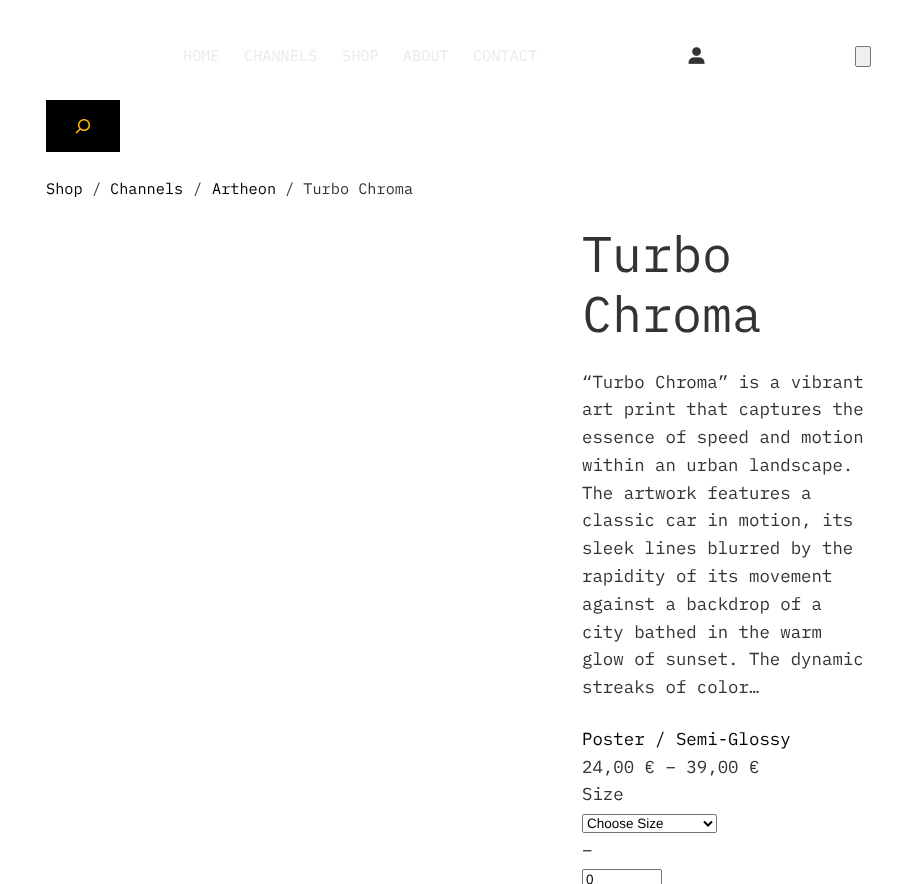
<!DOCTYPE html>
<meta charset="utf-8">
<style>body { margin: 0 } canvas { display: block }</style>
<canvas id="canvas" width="917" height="884"></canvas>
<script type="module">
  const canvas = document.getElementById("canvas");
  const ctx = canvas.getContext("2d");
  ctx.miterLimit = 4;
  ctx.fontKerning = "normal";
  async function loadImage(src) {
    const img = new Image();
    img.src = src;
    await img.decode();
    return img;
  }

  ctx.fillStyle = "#ffffff";
  ctx.fillRect(0, 0, 917, 884);
  ctx.font = "15.25px IBM Plex Mono";
  ctx.fillStyle = "#e8eaed";
  ctx.fillText("HOME", 183, 61);
  ctx.fillText("CHANNELS", 244, 61);
  ctx.fillText("SHOP", 342, 61);
  ctx.fillText("ABOUT", 403, 61);
  ctx.fillText("CONTACT", 473, 61);
  ctx.drawImage(await loadImage("img1.png"), 688, 47, 17, 17);
  ctx.fillStyle = "#efefef";
  ctx.beginPath();
  ctx.roundRect(855.5, 46.5, 15, 20, 1.5);
  ctx.fill();
  ctx.strokeStyle = "#767676";
  ctx.stroke();
  ctx.fillStyle = "#000000";
  ctx.fillRect(46, 100, 74, 52);
  ctx.drawImage(await loadImage("img2.png"), 75, 119, 16, 15);
  ctx.fillText("Shop", 46, 194);
  ctx.fillStyle = "#333333";
  ctx.fillText("/", 92, 194);
  ctx.fillStyle = "#000000";
  ctx.fillText("Channels", 110, 194);
  ctx.fillStyle = "#333333";
  ctx.fillText("/", 193, 194);
  ctx.fillStyle = "#000000";
  ctx.fillText("Artheon", 212, 194);
  ctx.fillStyle = "#333333";
  ctx.fillText("/ Turbo Chroma", 285, 194);
  ctx.font = "50px IBM Plex Mono";
  ctx.fillText("Turbo", 582, 272);
  ctx.fillText("Chroma", 582, 332);
  ctx.font = "17.4px IBM Plex Mono";
  ctx.fillText("“Turbo Chroma” is a vibrant", 582, 388);
  ctx.fillText("art print that captures the", 582, 415);
  ctx.fillText("essence of speed and motion", 582, 443);
  ctx.fillText("within an urban landscape.", 582, 471);
  ctx.fillText("The artwork features a", 582, 499);
  ctx.fillText("classic car in motion, its", 582, 526);
  ctx.fillText("sleek lines blurred by the", 582, 554);
  ctx.fillText("rapidity of its movement", 582, 582);
  ctx.fillText("against a backdrop of a", 582, 610);
  ctx.fillText("city bathed in the warm", 582, 638);
  ctx.fillText("glow of sunset. The dynamic", 582, 665);
  ctx.fillText("streaks of color…", 582, 693);
  ctx.fillStyle = "#000000";
  ctx.fillText("Poster / Semi-Glossy", 582, 745);
  ctx.fillStyle = "#333333";
  ctx.fillText("24,00 € – 39,00 €", 582, 773);
  ctx.fillText("Size", 582, 800);
  ctx.beginPath();
  ctx.roundRect(582.5, 814.5, 134, 18, 1.5);
  ctx.stroke();
  ctx.beginPath();
  ctx.moveTo(704, 821.5);
  ctx.lineTo(708, 825.5);
  ctx.lineTo(712, 821.5);
  ctx.strokeStyle = "#000000";
  ctx.lineWidth = 2;
  ctx.stroke();
  ctx.font = "13.5px Liberation Sans";
  ctx.fillStyle = "#000000";
  ctx.fillText("Choose Size", 587, 828);
  ctx.font = "17.4px IBM Plex Mono";
  ctx.fillStyle = "#333333";
  ctx.fillText("–", 582, 856);
  ctx.beginPath();
  ctx.roundRect(582.5, 869.5, 79, 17, 1.5);
  ctx.strokeStyle = "#767676";
  ctx.lineWidth = 1;
  ctx.stroke();
  ctx.font = "13.5px Liberation Sans";
  ctx.fillStyle = "#000000";
  ctx.fillText("0", 586, 884);
</script>
